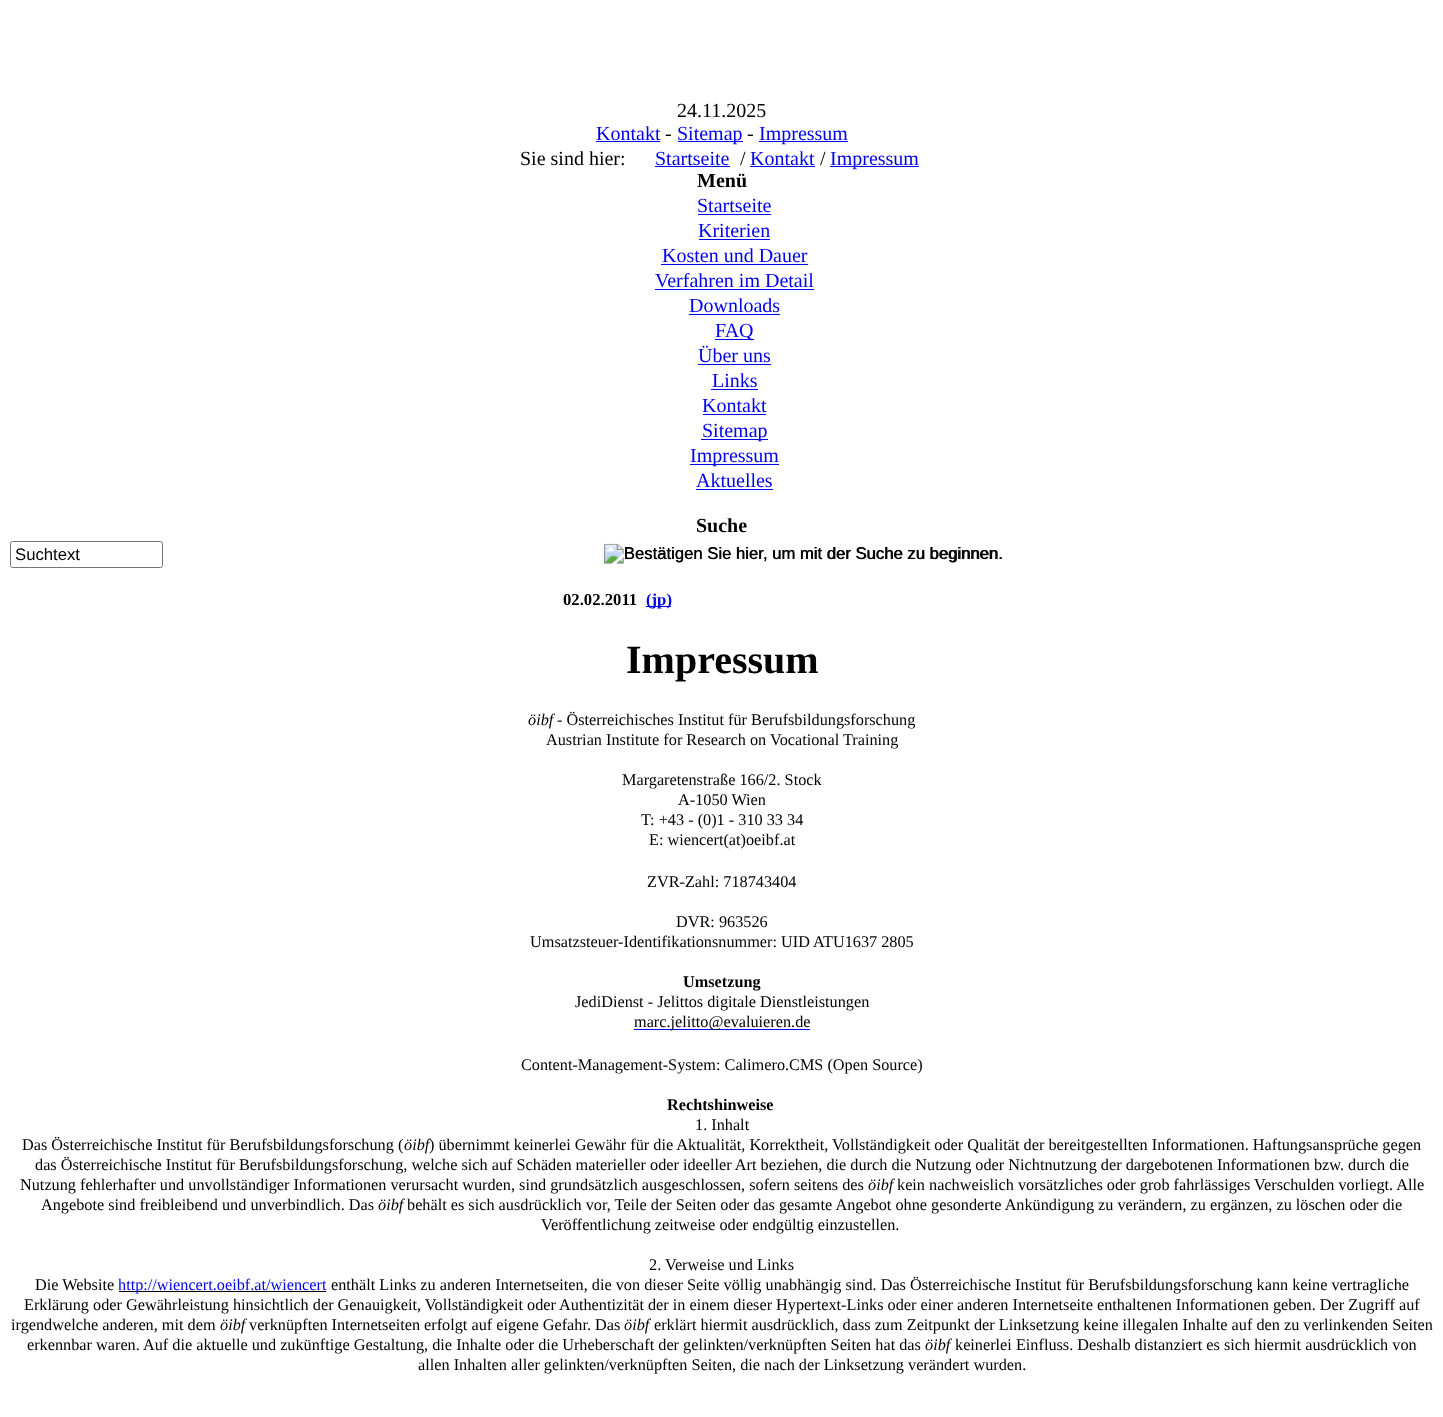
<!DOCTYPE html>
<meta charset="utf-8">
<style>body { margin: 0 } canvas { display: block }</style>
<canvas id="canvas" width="1443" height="1417"></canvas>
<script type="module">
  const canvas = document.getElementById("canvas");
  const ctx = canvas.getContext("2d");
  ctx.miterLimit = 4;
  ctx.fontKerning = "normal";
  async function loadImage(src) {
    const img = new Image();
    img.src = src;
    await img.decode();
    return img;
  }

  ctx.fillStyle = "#ffffff";
  ctx.fillRect(0, 0, 1443, 1417);
  ctx.font = "20px Liberation Serif";
  ctx.fillStyle = "#000000";
  ctx.fillText("24.11.2025", 677, 117);
  ctx.fillStyle = "#0000ee";
  ctx.fillText("Kontakt", 596, 140);
  ctx.fillRect(596, 141, 64, 1);
  ctx.fillStyle = "#000000";
  ctx.fillText("-", 665, 140);
  ctx.fillStyle = "#0000ee";
  ctx.fillRect(678, 141, 65, 1);
  ctx.fillText("Sitemap", 677, 140);
  ctx.fillStyle = "#000000";
  ctx.fillText("-", 747, 140);
  ctx.fillStyle = "#0000ee";
  ctx.fillRect(759, 141, 89, 1);
  ctx.fillText("Impressum", 759, 140);
  ctx.fillStyle = "#000000";
  ctx.fillText("Sie sind hier:", 520, 165);
  ctx.fillStyle = "#0000ee";
  ctx.fillText("Startseite", 655, 165);
  ctx.fillRect(655, 166, 75, 1);
  ctx.fillStyle = "#000000";
  ctx.fillText("/", 740, 165);
  ctx.fillStyle = "#0000ee";
  ctx.fillText("Kontakt", 750, 165);
  ctx.fillRect(750, 166, 65, 1);
  ctx.fillStyle = "#000000";
  ctx.fillText("/", 820, 165);
  ctx.fillStyle = "#0000ee";
  ctx.fillRect(830, 166, 89, 1);
  ctx.fillText("Impressum", 830, 165);
  ctx.font = "bold 20px Liberation Serif";
  ctx.fillStyle = "#000000";
  ctx.fillText("Menü", 697, 187);
  ctx.font = "20px Liberation Serif";
  ctx.fillStyle = "#0000ee";
  ctx.fillText("Startseite", 697, 212);
  ctx.fillRect(698, 214, 73, 1);
  ctx.fillText("Kriterien", 698, 237);
  ctx.fillRect(699, 239, 71, 1);
  ctx.fillText("Kosten und Dauer", 662, 262);
  ctx.fillRect(661, 264, 147, 1);
  ctx.fillText("Verfahren im Detail", 655, 287);
  ctx.fillRect(655, 289, 159, 1);
  ctx.fillText("Downloads", 689, 312);
  ctx.fillRect(689, 314, 91, 1);
  ctx.fillRect(715, 339, 39, 1);
  ctx.fillText("FAQ", 715, 337);
  ctx.fillText("Über uns", 698, 362);
  ctx.fillRect(698, 364, 73, 1);
  ctx.fillText("Links", 712, 387);
  ctx.fillRect(711, 389, 47, 1);
  ctx.fillText("Kontakt", 702, 412);
  ctx.fillRect(703, 414, 63, 1);
  ctx.fillRect(701, 439, 67, 1);
  ctx.fillText("Sitemap", 702, 437);
  ctx.fillRect(690, 464, 89, 1);
  ctx.fillText("Impressum", 690, 462);
  ctx.fillText("Aktuelles", 696, 487);
  ctx.fillRect(696, 489, 77, 1);
  ctx.font = "bold 20px Liberation Serif";
  ctx.fillStyle = "#000000";
  ctx.fillText("Suche", 696, 532);
  ctx.beginPath();
  ctx.roundRect(10.5, 541.5, 152, 26, 2);
  ctx.strokeStyle = "#767676";
  ctx.stroke();
  ctx.font = "16.7px Liberation Sans";
  ctx.fillText("Suchtext", 15, 560);
  ctx.drawImage(await loadImage("img1.png"), 603, 543, 399, 21);
  ctx.fillText("Bestätigen Sie hier, um mit der Suche zu beginnen.", 624, 559);
  ctx.font = "bold 16.7px Liberation Serif";
  ctx.fillText("02.02.2011", 563, 605);
  ctx.fillStyle = "#0000ee";
  ctx.fillRect(646, 606, 25, 1);
  ctx.fillText("(jp)", 646, 605);
  ctx.font = "bold 40px Liberation Serif";
  ctx.fillStyle = "#000000";
  ctx.fillText("Impressum", 626, 673);
  ctx.font = "italic 16.25px Liberation Serif";
  ctx.fillText("öibf", 528, 725);
  ctx.font = "16.25px Liberation Serif";
  ctx.fillText("- Österreichisches Institut für Berufsbildungsforschung", 557, 725);
  ctx.fillText("Austrian Institute for Research on Vocational Training", 546, 745);
  ctx.fillText("Margaretenstraße 166/2. Stock", 622, 785);
  ctx.fillText("A-1050 Wien", 678, 805);
  ctx.fillText("T: +43 - (0)1 - 310 33 34", 641, 825);
  ctx.fillText("E: wiencert(at)oeibf.at", 649, 845);
  ctx.fillText("ZVR-Zahl: 718743404", 647, 887);
  ctx.fillText("DVR: 963526", 676, 927);
  ctx.fillText("Umsatzsteuer-Identifikationsnummer: UID ATU1637 2805", 530, 947);
  ctx.font = "bold 16.25px Liberation Serif";
  ctx.fillText("Umsetzung", 683, 987);
  ctx.font = "16.25px Liberation Serif";
  ctx.fillText("JediDienst - Jelittos digitale Dienstleistungen", 575, 1007);
  ctx.fillStyle = "#0000ee";
  ctx.fillRect(634, 1029, 176, 1);
  ctx.fillStyle = "#000000";
  ctx.fillText("marc.jelitto@evaluieren.de", 634, 1027);
  ctx.fillText("Content-Management-System: Calimero.CMS (Open Source)", 521, 1070);
  ctx.font = "bold 16.25px Liberation Serif";
  ctx.fillText("Rechtshinweise", 667, 1110);
  ctx.font = "16.25px Liberation Serif";
  ctx.fillText("1. Inhalt", 695, 1130);
  ctx.fillText("Das Österreichische Institut für Berufsbildungsforschung (", 22, 1150);
  ctx.font = "italic 16.25px Liberation Serif";
  ctx.fillText("öibf", 404, 1150);
  ctx.font = "16.25px Liberation Serif";
  ctx.fillText(") übernimmt keinerlei Gewähr für die Aktualität, Korrektheit, Vollständigkeit oder Qualität der bereitgestellten Informationen. Haftungsansprüche gegen", 429, 1150);
  ctx.fillText("das Österreichische Institut für Berufsbildungsforschung, welche sich auf Schäden materieller oder ideeller Art beziehen, die durch die Nutzung oder Nichtnutzung der dargebotenen Informationen bzw. durch die", 35, 1170);
  ctx.fillText("Nutzung fehlerhafter und unvollständiger Informationen verursacht wurden, sind grundsätzlich ausgeschlossen, sofern seitens des", 20, 1190);
  ctx.font = "italic 16.25px Liberation Serif";
  ctx.fillText("öibf", 868, 1190);
  ctx.font = "16.25px Liberation Serif";
  ctx.fillText("kein nachweislich vorsätzliches oder grob fahrlässiges Verschulden vorliegt. Alle", 897, 1190);
  ctx.fillText("Angebote sind freibleibend und unverbindlich. Das", 41, 1210);
  ctx.font = "italic 16.25px Liberation Serif";
  ctx.fillText("öibf", 378, 1210);
  ctx.font = "16.25px Liberation Serif";
  ctx.fillText("behält es sich ausdrücklich vor, Teile der Seiten oder das gesamte Angebot ohne gesonderte Ankündigung zu verändern, zu ergänzen, zu löschen oder die", 407, 1210);
  ctx.fillText("Veröffentlichung zeitweise oder endgültig einzustellen.", 541, 1230);
  ctx.fillText("2. Verweise und Links", 649, 1270);
  ctx.fillText("Die Website", 35, 1290);
  ctx.fillRect(119, 1291, 207, 1);
  ctx.fillStyle = "#0000ee";
  ctx.fillText("http://wiencert.oeibf.at/wiencert", 118, 1290);
  ctx.fillStyle = "#000000";
  ctx.fillText("enthält Links zu anderen Internetseiten, die von dieser Seite völlig unabhängig sind. Das Österreichische Institut für Berufsbildungsforschung kann keine vertragliche", 331, 1290);
  ctx.fillText("Erklärung oder Gewährleistung hinsichtlich der Genauigkeit, Vollständigkeit oder Authentizität der in einem dieser Hypertext-Links oder einer anderen Internetseite enthaltenen Informationen geben. Der Zugriff auf", 24, 1310);
  ctx.fillText("irgendwelche anderen, mit dem", 11, 1330);
  ctx.font = "italic 16.25px Liberation Serif";
  ctx.fillText("öibf", 220, 1330);
  ctx.font = "16.25px Liberation Serif";
  ctx.fillText("verknüpften Internetseiten erfolgt auf eigene Gefahr. Das", 249, 1330);
  ctx.font = "italic 16.25px Liberation Serif";
  ctx.fillText("öibf", 624, 1330);
  ctx.font = "16.25px Liberation Serif";
  ctx.fillText("erklärt hiermit ausdrücklich, dass zum Zeitpunkt der Linksetzung keine illegalen Inhalte auf den zu verlinkenden Seiten", 654, 1330);
  ctx.fillText("erkennbar waren. Auf die aktuelle und zukünftige Gestaltung, die Inhalte oder die Urheberschaft der gelinkten/verknüpften Seiten hat das", 27, 1350);
  ctx.font = "italic 16.25px Liberation Serif";
  ctx.fillText("öibf", 925, 1350);
  ctx.font = "16.25px Liberation Serif";
  ctx.fillText("keinerlei Einfluss. Deshalb distanziert es sich hiermit ausdrücklich von", 955, 1350);
  ctx.fillText("allen Inhalten aller gelinkten/verknüpften Seiten, die nach der Linksetzung verändert wurden.", 418, 1370);
</script>
